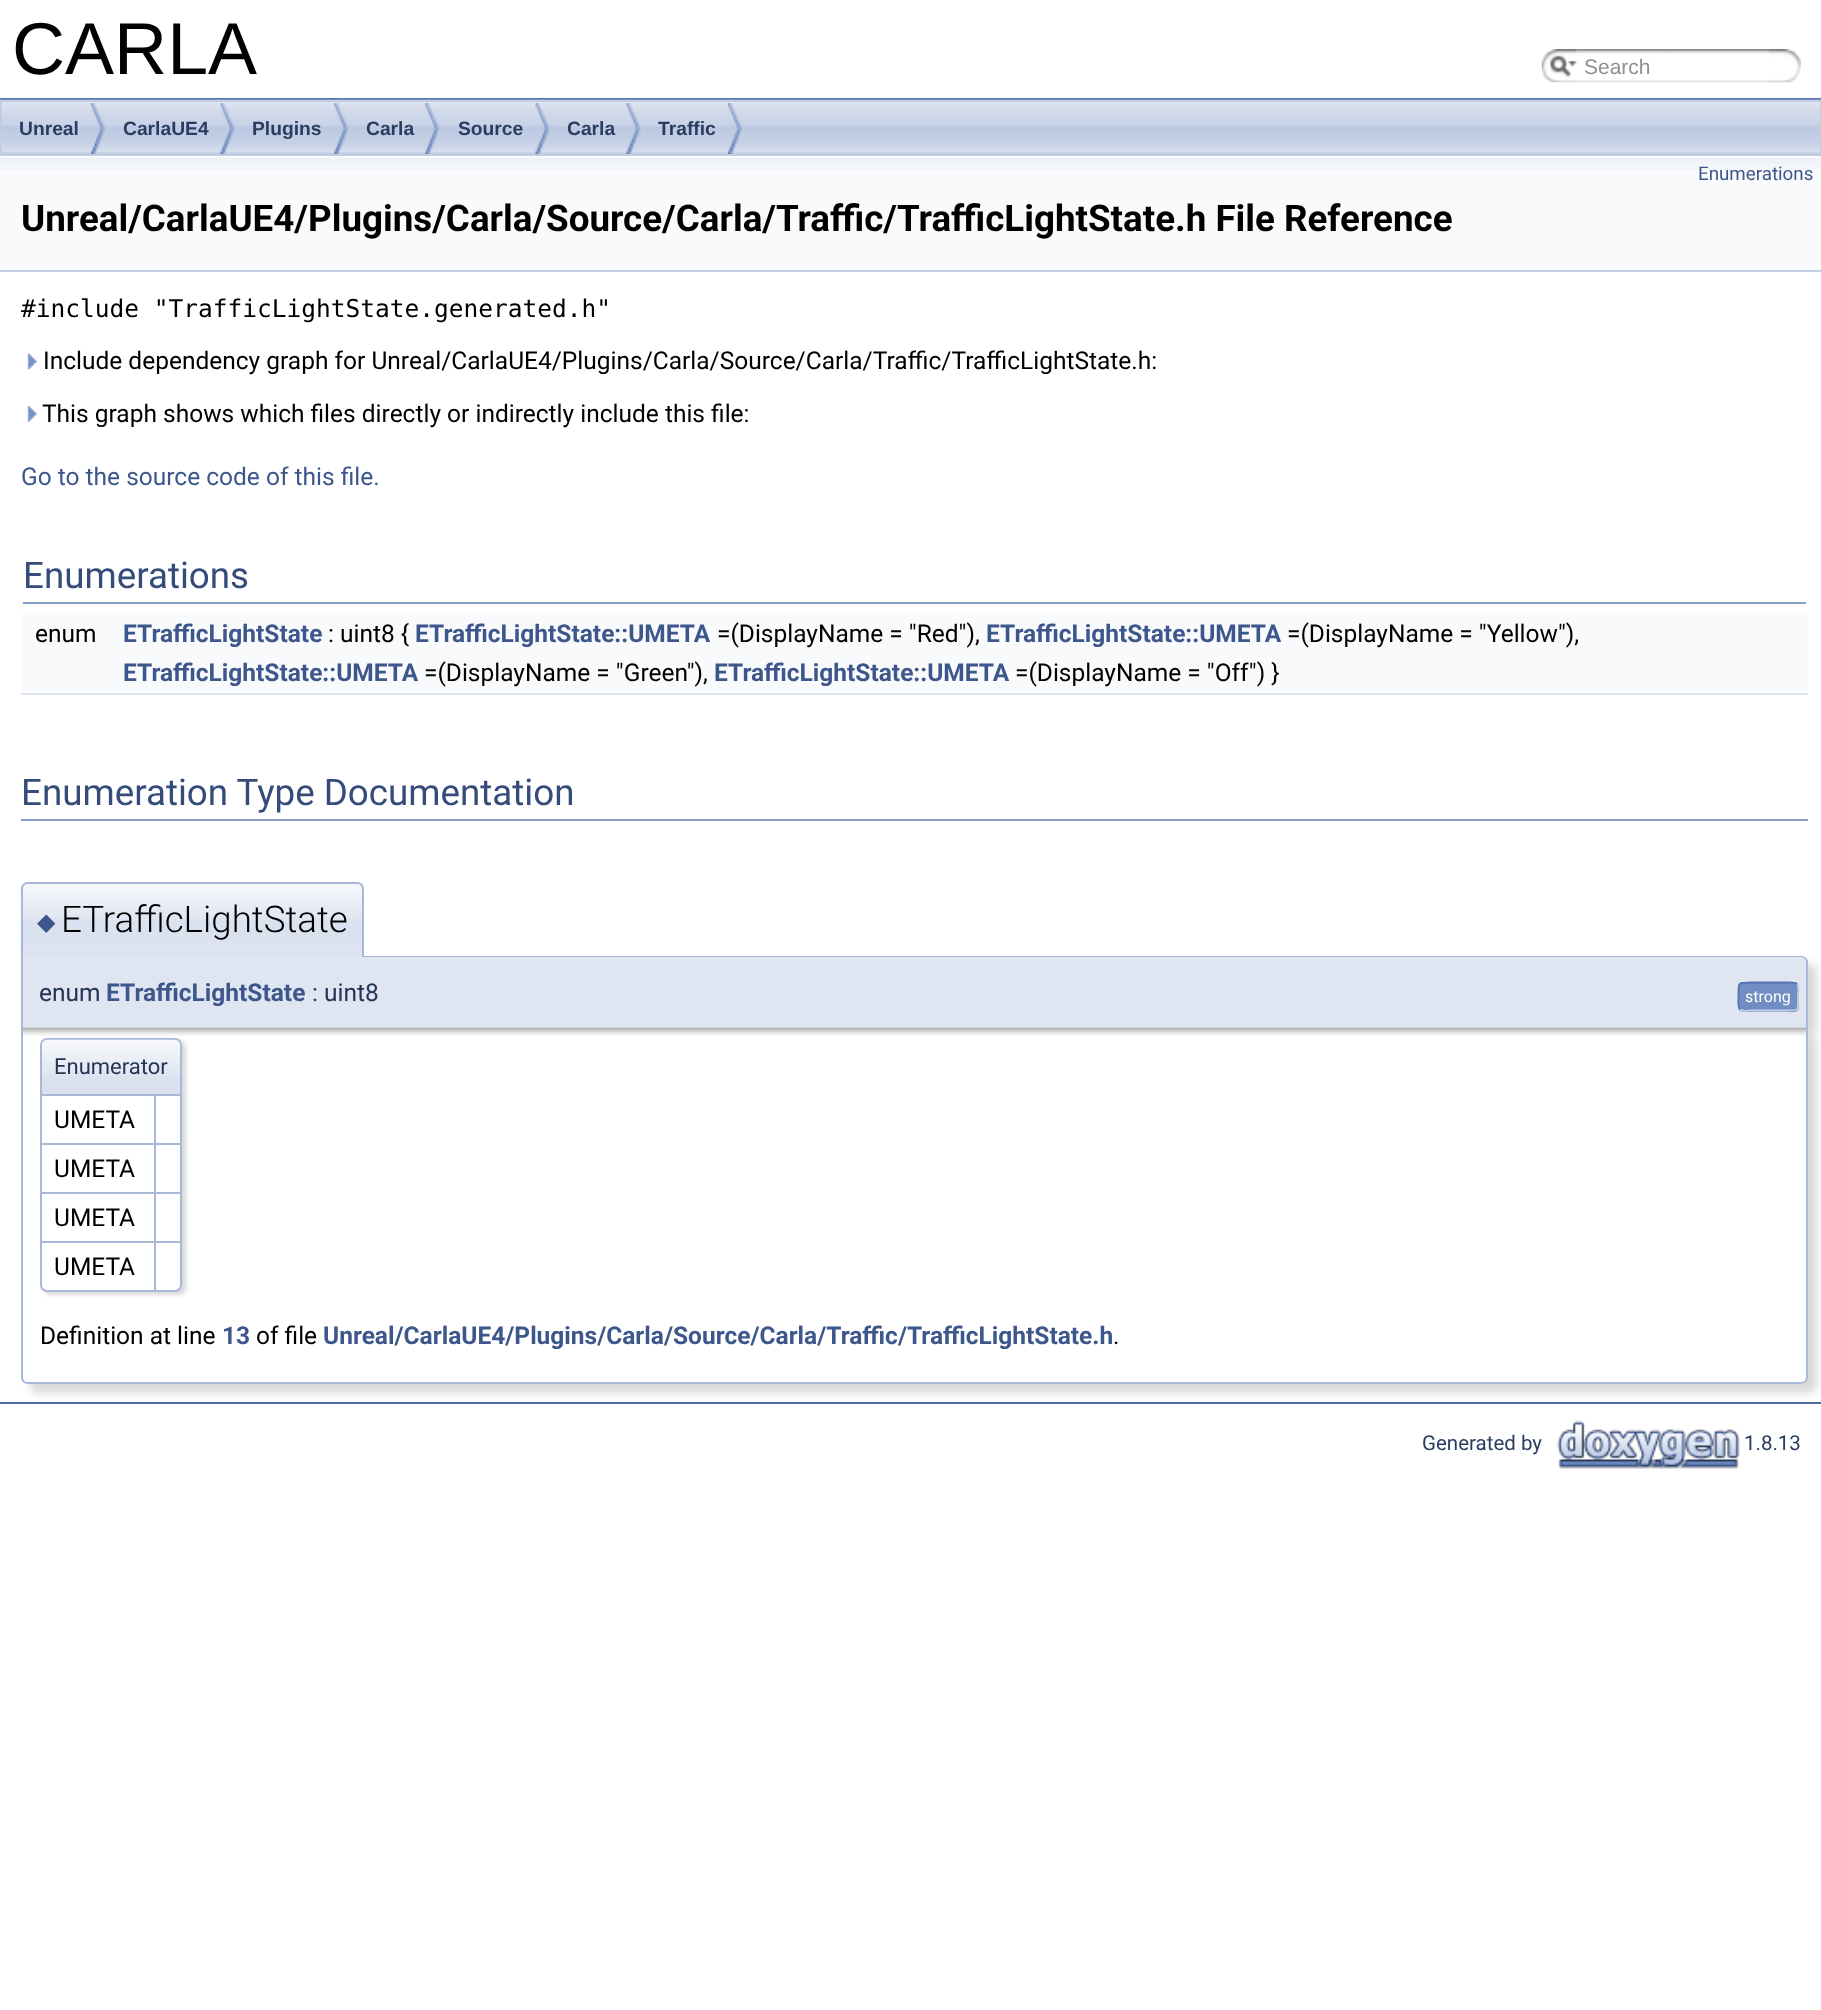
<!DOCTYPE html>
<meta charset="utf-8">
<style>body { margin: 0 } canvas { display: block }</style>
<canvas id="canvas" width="1821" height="2010"></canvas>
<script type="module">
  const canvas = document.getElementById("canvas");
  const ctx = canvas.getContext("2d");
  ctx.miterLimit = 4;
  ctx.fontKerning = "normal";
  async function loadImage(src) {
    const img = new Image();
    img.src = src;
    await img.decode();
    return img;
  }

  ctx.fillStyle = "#ffffff";
  ctx.fillRect(0, 0, 1821, 2010);
  ctx.fillStyle = "#5373b4";
  ctx.fillRect(0, 98, 1821, 2);
  ctx.font = "73.5px Liberation Sans";
  ctx.fillStyle = "#000000";
  ctx.fillText("CARLA", 12, 74);
  ctx.drawImage(await loadImage("img1.png"), 1541, 49, 36, 34);
  ctx.drawImage(await loadImage("img2.png"), 1550, 55, 27, 23);
  ctx.drawImage(await loadImage("img3.png"), 1576, 49, 206, 34);
  ctx.font = "21px Liberation Sans";
  ctx.fillStyle = "#909090";
  ctx.fillText("Search", 1584, 74);
  ctx.drawImage(await loadImage("img4.png"), 1769, 49, 32, 34);
  ctx.drawImage(await loadImage("img5.png"), 0, 99, 1821, 55);
  ctx.strokeStyle = "#c2cde4";
  ctx.lineWidth = 2;
  ctx.strokeRect(1, 101, 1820, 54);
  ctx.drawImage(await loadImage("img6.png"), 91, 103, 14, 51);
  ctx.font = "bold 19.25px Liberation Sans";
  ctx.fillStyle = "#2a3d61";
  ctx.fillText("Unreal", 19, 135);
  ctx.drawImage(await loadImage("img7.png"), 220, 103, 15, 51);
  ctx.fillText("CarlaUE4", 123, 135);
  ctx.drawImage(await loadImage("img8.png"), 334, 103, 15, 51);
  ctx.fillText("Plugins", 252, 135);
  ctx.drawImage(await loadImage("img8.png"), 425, 103, 15, 51);
  ctx.fillText("Carla", 366, 135);
  ctx.drawImage(await loadImage("img7.png"), 535, 103, 15, 51);
  ctx.fillText("Source", 458, 135);
  ctx.drawImage(await loadImage("img9.png"), 626, 103, 15, 51);
  ctx.fillText("Carla", 567, 135);
  ctx.drawImage(await loadImage("img6.png"), 728, 103, 14, 51);
  ctx.fillText("Traffic", 658, 135);
  ctx.fillStyle = "#f9fafc";
  ctx.fillRect(0, 170, 1821, 100);
  ctx.drawImage(await loadImage("img10.png"), 0, 156, 1821, 14);
  ctx.fillStyle = "#c4cfe5";
  ctx.fillRect(0, 270, 1821, 2);
  ctx.font = "18.75px Roboto";
  ctx.fillStyle = "#3d578c";
  ctx.fillText("Enumerations", 1698, 180);
  ctx.font = "bold 36.75px Roboto";
  ctx.fillStyle = "#000000";
  ctx.fillText("Unreal/CarlaUE4/Plugins/Carla/Source/Carla/Traffic/TrafficLightState.h File Reference", 21, 231);
  ctx.font = "24.5px DejaVu Sans Mono";
  ctx.fillText("#include \"TrafficLightState.generated.h\"", 21, 317);
  ctx.drawImage(await loadImage("img11.png"), 27, 353, 10, 17);
  ctx.font = "24.5px Roboto";
  ctx.fillText("Include dependency graph for Unreal/CarlaUE4/Plugins/Carla/Source/Carla/Traffic/TrafficLightState.h:", 43, 369);
  ctx.drawImage(await loadImage("img12.png"), 27, 406, 10, 16);
  ctx.fillText("This graph shows which files directly or indirectly include this file:", 42, 422);
  ctx.fillStyle = "#3d578c";
  ctx.fillText("Go to the source code of this file.", 21, 485);
  ctx.fillStyle = "#879ecb";
  ctx.fillRect(23, 602, 1783, 2);
  ctx.font = "36.75px Roboto";
  ctx.fillStyle = "#354c7b";
  ctx.fillText("Enumerations", 23, 588);
  ctx.fillStyle = "#f9fafc";
  ctx.fillRect(21, 613, 1787, 78);
  ctx.font = "24.5px Roboto";
  ctx.fillStyle = "#000000";
  ctx.fillText("enum", 35, 642);
  ctx.font = "bold 24.5px Roboto";
  ctx.fillStyle = "#3d578c";
  ctx.fillText("ETrafficLightState", 123, 642);
  ctx.font = "24.5px Roboto";
  ctx.fillStyle = "#000000";
  ctx.fillText(": uint8 {", 328, 642);
  ctx.font = "bold 24.5px Roboto";
  ctx.fillStyle = "#3d578c";
  ctx.fillText("ETrafficLightState::UMETA", 415, 642);
  ctx.font = "24.5px Roboto";
  ctx.fillStyle = "#000000";
  ctx.fillText("=(DisplayName = \"Red\"),", 717, 642);
  ctx.font = "bold 24.5px Roboto";
  ctx.fillStyle = "#3d578c";
  ctx.fillText("ETrafficLightState::UMETA", 986, 642);
  ctx.font = "24.5px Roboto";
  ctx.fillStyle = "#000000";
  ctx.fillText("=(DisplayName = \"Yellow\"),", 1287, 642);
  ctx.font = "bold 24.5px Roboto";
  ctx.fillStyle = "#3d578c";
  ctx.fillText("ETrafficLightState::UMETA", 123, 681);
  ctx.font = "24.5px Roboto";
  ctx.fillStyle = "#000000";
  ctx.fillText("=(DisplayName = \"Green\"),", 424, 681);
  ctx.font = "bold 24.5px Roboto";
  ctx.fillStyle = "#3d578c";
  ctx.fillText("ETrafficLightState::UMETA", 714, 681);
  ctx.font = "24.5px Roboto";
  ctx.fillStyle = "#000000";
  ctx.fillText("=(DisplayName = \"Off\") }", 1015, 681);
  ctx.fillStyle = "#dee4f0";
  ctx.fillRect(21, 693, 1787, 2);
  ctx.fillStyle = "#879ecb";
  ctx.fillRect(21, 819, 1787, 2);
  ctx.font = "36.75px Roboto";
  ctx.fillStyle = "#354c7b";
  ctx.fillText("Enumeration Type Documentation", 21, 805);
  ctx.fillStyle = "rgba(0, 0, 0, 0.15)";
  ctx.filter = "blur(4.5px)";
  ctx.beginPath();
  ctx.roundRect(30, 964, 1787, 72, 7);
  ctx.fill();
  ctx.filter = "none";
  ctx.fillStyle = "#dfe5f1";
  ctx.beginPath();
  ctx.roundRect(21, 956, 1787, 71, [0, 7, 0, 0]);
  ctx.fill();
  ctx.fillStyle = "#a8b8d9";
  ctx.beginPath();
  ctx.moveTo(21, 956);
  ctx.lineTo(1801, 956);
  ctx.bezierCurveTo(1805, 956, 1808, 959, 1808, 962);
  ctx.lineTo(1808, 1027);
  ctx.lineTo(21, 1027);
  ctx.closePath();
  ctx.moveTo(23, 957);
  ctx.lineTo(1801, 957);
  ctx.bezierCurveTo(1804, 957, 1806, 960, 1806, 962);
  ctx.lineTo(1806, 1027);
  ctx.lineTo(23, 1027);
  ctx.closePath();
  ctx.fill("evenodd");
  ctx.fillStyle = "#e2e8f2";
  ctx.beginPath();
  ctx.roundRect(21, 882, 343, 75, [7, 7, 0, 0]);
  ctx.fill();
  ctx.drawImage(await loadImage("img13.png"), 21, 883, 343, 73);
  ctx.fillStyle = "#a8b8d9";
  ctx.beginPath();
  ctx.moveTo(28, 882);
  ctx.lineTo(357, 882);
  ctx.bezierCurveTo(361, 882, 364, 885, 364, 889);
  ctx.lineTo(364, 957);
  ctx.lineTo(21, 957);
  ctx.lineTo(21, 889);
  ctx.bezierCurveTo(21, 885, 24, 882, 28, 882);
  ctx.closePath();
  ctx.moveTo(28, 884);
  ctx.lineTo(357, 884);
  ctx.bezierCurveTo(360, 884, 362, 886, 362, 889);
  ctx.lineTo(362, 957);
  ctx.lineTo(23, 957);
  ctx.lineTo(23, 889);
  ctx.bezierCurveTo(23, 886, 25, 884, 28, 884);
  ctx.closePath();
  ctx.fill("evenodd");
  ctx.font = "24px DejaVu Sans";
  ctx.fillStyle = "#3d578c";
  ctx.fillText("◆", 37, 930);
  ctx.font = "300 36.75px Roboto";
  ctx.fillStyle = "#000000";
  ctx.fillText("ETrafficLightState", 61, 932);
  ctx.font = "24.5px Roboto";
  ctx.fillStyle = "#253555";
  ctx.fillText("enum", 39, 1001);
  ctx.font = "bold 24.5px Roboto";
  ctx.fillStyle = "#3d578c";
  ctx.fillText("ETrafficLightState", 106, 1001);
  ctx.font = "24.5px Roboto";
  ctx.fillStyle = "#253555";
  ctx.fillText(": uint8", 312, 1001);
  ctx.fillStyle = "#728dc1";
  ctx.beginPath();
  ctx.roundRect(1738, 982, 61, 30, 5);
  ctx.fill();
  ctx.beginPath();
  ctx.moveTo(1797, 984);
  ctx.bezierCurveTo(1799.5, 986.5, 1798, 993.5, 1798, 996.5);
  ctx.bezierCurveTo(1798, 1011, 1800, 1010.5, 1785.5, 1010.5);
  ctx.lineTo(1751.5, 1010.5);
  ctx.bezierCurveTo(1749.5, 1010.5, 1742.5, 1012, 1740, 1009.5);
  ctx.strokeStyle = "#c4cfe5";
  ctx.lineWidth = 1.8;
  ctx.stroke();
  ctx.beginPath();
  ctx.moveTo(1740, 1009.5);
  ctx.bezierCurveTo(1737.5, 1007, 1738.5, 999.5, 1738.5, 996.5);
  ctx.bezierCurveTo(1738.5, 982.5, 1737, 982.5, 1751.5, 982.5);
  ctx.lineTo(1785.5, 982.5);
  ctx.bezierCurveTo(1787, 982.5, 1794, 981.5, 1797, 984);
  ctx.strokeStyle = "#5373b4";
  ctx.stroke();
  ctx.font = "16px Roboto";
  ctx.fillStyle = "#ffffff";
  ctx.fillText("strong", 1745, 1002);
  ctx.fillStyle = "rgba(0, 0, 0, 0.15)";
  ctx.filter = "blur(4.5px)";
  ctx.beginPath();
  ctx.roundRect(30, 1036, 1787, 357, 7);
  ctx.fill();
  ctx.filter = "none";
  ctx.fillStyle = "#ffffff";
  ctx.beginPath();
  ctx.roundRect(21, 1027, 1787, 357, [0, 0, 7, 7]);
  ctx.fill();
  ctx.drawImage(await loadImage("img14.png"), 23, 1027, 1783, 9);
  ctx.fillStyle = "#a8b8d9";
  ctx.beginPath();
  ctx.moveTo(21, 1027);
  ctx.lineTo(1808, 1027);
  ctx.lineTo(1808, 1377);
  ctx.bezierCurveTo(1808, 1381, 1805, 1384, 1801, 1384);
  ctx.lineTo(28, 1384);
  ctx.bezierCurveTo(24, 1384, 21, 1381, 21, 1377);
  ctx.closePath();
  ctx.moveTo(23, 1027);
  ctx.lineTo(1806, 1027);
  ctx.lineTo(1806, 1377);
  ctx.bezierCurveTo(1806, 1380, 1804, 1382, 1801, 1382);
  ctx.lineTo(28, 1382);
  ctx.bezierCurveTo(25, 1382, 23, 1380, 23, 1377);
  ctx.closePath();
  ctx.fill("evenodd");
  ctx.save();
  ctx.beginPath();
  ctx.moveTo(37, 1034);
  ctx.lineTo(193, 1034);
  ctx.lineTo(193, 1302);
  ctx.lineTo(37, 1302);
  ctx.closePath();
  ctx.moveTo(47, 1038);
  ctx.lineTo(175, 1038);
  ctx.bezierCurveTo(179, 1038, 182, 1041, 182, 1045);
  ctx.lineTo(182, 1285);
  ctx.bezierCurveTo(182, 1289, 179, 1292, 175, 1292);
  ctx.lineTo(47, 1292);
  ctx.bezierCurveTo(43, 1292, 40, 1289, 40, 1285);
  ctx.lineTo(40, 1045);
  ctx.bezierCurveTo(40, 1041, 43, 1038, 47, 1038);
  ctx.closePath();
  ctx.clip("evenodd");
  ctx.fillStyle = "rgba(0, 0, 0, 0.15)";
  ctx.filter = "blur(2px)";
  ctx.beginPath();
  ctx.roundRect(44, 1041, 142, 254, 7);
  ctx.fill();
  ctx.filter = "none";
  ctx.restore();
  ctx.beginPath();
  ctx.roundRect(41, 1039, 140, 252, 6);
  ctx.strokeStyle = "#a8b8d9";
  ctx.lineWidth = 2;
  ctx.stroke();
  ctx.drawImage(await loadImage("img15.png"), 42, 1039, 139, 56);
  ctx.fillRect(42, 1094, 138, 2);
  ctx.font = "22px Roboto";
  ctx.fillStyle = "#253555";
  ctx.fillText("Enumerator", 54, 1074);
  ctx.fillStyle = "#a8b8d9";
  ctx.fillRect(154, 1096, 2, 194);
  ctx.fillRect(42, 1143, 138, 2);
  ctx.font = "24.5px Roboto";
  ctx.fillStyle = "#000000";
  ctx.fillText("UMETA", 54, 1128);
  ctx.fillStyle = "#a8b8d9";
  ctx.fillRect(42, 1192, 138, 2);
  ctx.fillStyle = "#000000";
  ctx.fillText("UMETA", 54, 1177);
  ctx.fillStyle = "#a8b8d9";
  ctx.fillRect(42, 1241, 138, 2);
  ctx.fillStyle = "#000000";
  ctx.fillText("UMETA", 54, 1226);
  ctx.fillText("UMETA", 54, 1275);
  ctx.fillText("Definition at line", 40, 1344);
  ctx.font = "bold 24.5px Roboto";
  ctx.fillStyle = "#3d578c";
  ctx.fillText("13", 222, 1344);
  ctx.font = "24.5px Roboto";
  ctx.fillStyle = "#000000";
  ctx.fillText("of file", 256, 1344);
  ctx.font = "bold 24.5px Roboto";
  ctx.fillStyle = "#3d578c";
  ctx.fillText("Unreal/CarlaUE4/Plugins/Carla/Source/Carla/Traffic/TrafficLightState.h", 323, 1344);
  ctx.font = "24.5px Roboto";
  ctx.fillStyle = "#000000";
  ctx.fillText(".", 1113, 1344);
  ctx.fillStyle = "#4a6aaa";
  ctx.fillRect(0, 1402, 1821, 2);
  ctx.font = "20.5px Roboto";
  ctx.fillStyle = "#2a3d61";
  ctx.fillText("Generated by", 1422, 1450);
  ctx.drawImage(await loadImage("img16.png"), 1557, 1420, 183, 49);
  ctx.fillText("1.8.13", 1744, 1450);
</script>
